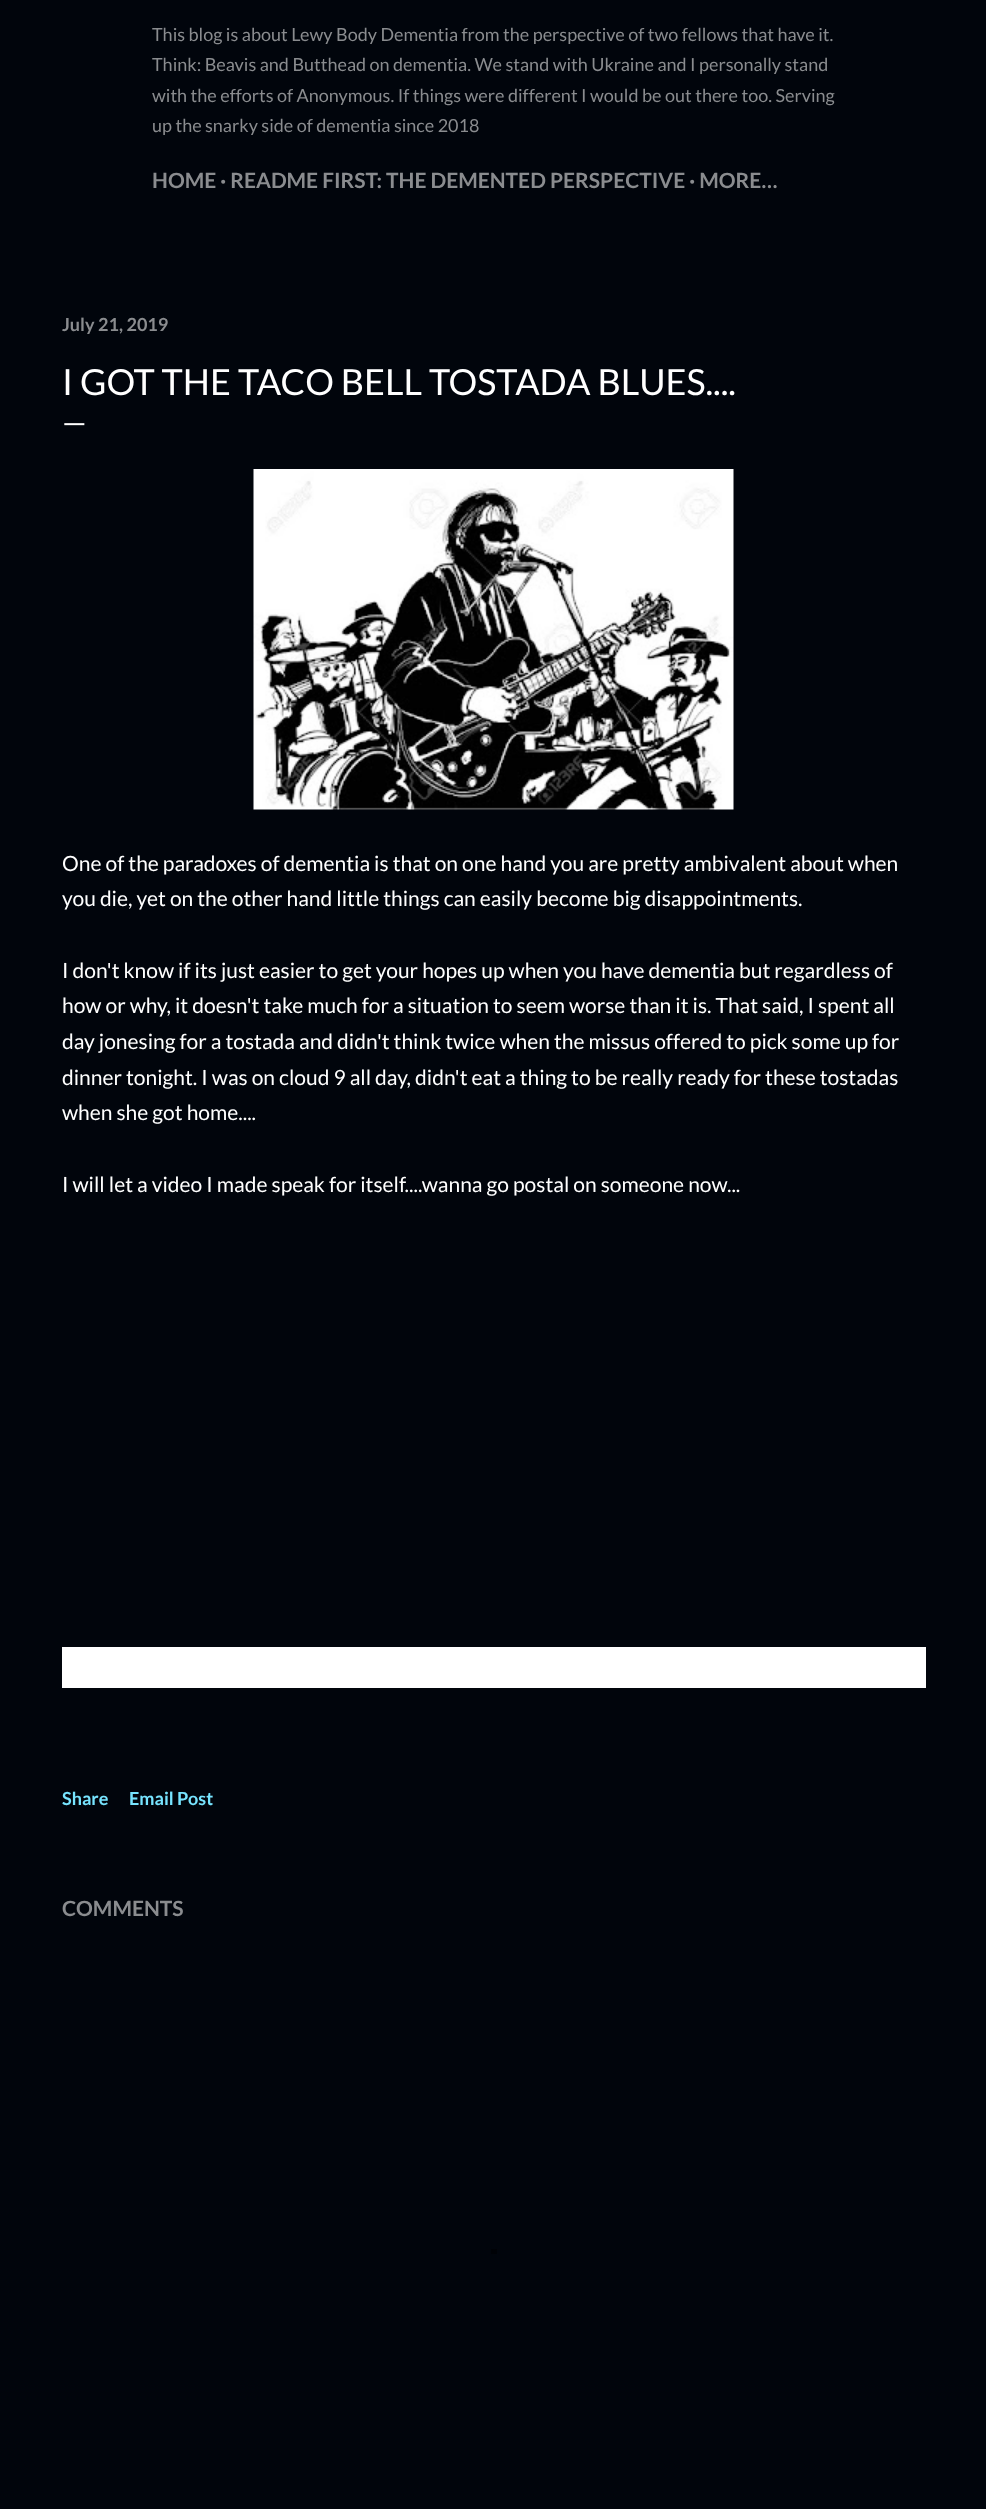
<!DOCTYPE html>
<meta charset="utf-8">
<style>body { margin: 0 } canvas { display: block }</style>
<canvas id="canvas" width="986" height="2509"></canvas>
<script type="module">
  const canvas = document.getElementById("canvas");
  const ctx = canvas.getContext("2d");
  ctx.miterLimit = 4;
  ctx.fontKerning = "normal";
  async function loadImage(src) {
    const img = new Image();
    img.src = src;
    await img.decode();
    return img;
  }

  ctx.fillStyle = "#01050c";
  ctx.fillRect(0, 0, 986, 2509);
  ctx.font = "18px Lato";
  ctx.fillStyle = "#8a8c8f";
  ctx.fillText("This blog is about Lewy Body Dementia from the perspective of two fellows that have it.", 152, 41);
  ctx.fillText("Think: Beavis and Butthead on dementia. We stand with Ukraine and I personally stand", 152, 71);
  ctx.fillText("with the efforts of Anonymous. If things were different I would be out there too. Serving", 152, 102);
  ctx.fillText("up the snarky side of dementia since 2018", 152, 132);
  ctx.font = "bold 21px Lato";
  ctx.fillText("HOME · README FIRST: THE DEMENTED PERSPECTIVE · MORE…", 152, 188);
  ctx.font = "bold 18px Lato";
  ctx.fillText("July 21, 2019", 62, 331);
  ctx.font = "36px Lato";
  ctx.fillStyle = "#ffffff";
  ctx.fillText("I GOT THE TACO BELL TOSTADA BLUES....", 62, 395);
  ctx.font = "30px Lato";
  ctx.fillText("—", 62, 433);
  ctx.drawImage(await loadImage("img1.png"), 253, 469, 481, 341);
  ctx.font = "21px Lato";
  ctx.fillText("One of the paradoxes of dementia is that on one hand you are pretty ambivalent about when", 62, 871);
  ctx.fillText("you die, yet on the other hand little things can easily become big disappointments.", 62, 906);
  ctx.fillText("I don't know if its just easier to get your hopes up when you have dementia but regardless of", 62, 978);
  ctx.fillText("how or why, it doesn't take much for a situation to seem worse than it is. That said, I spent all", 62, 1013);
  ctx.fillText("day jonesing for a tostada and didn't think twice when the missus offered to pick some up for", 62, 1049);
  ctx.fillText("dinner tonight. I was on cloud 9 all day, didn't eat a thing to be really ready for these tostadas", 62, 1085);
  ctx.fillText("when she got home....", 62, 1120);
  ctx.fillText("I will let a video I made speak for itself....wanna go postal on someone now...", 62, 1192);
  ctx.fillRect(62, 1647, 864, 41);
  ctx.font = "bold 18px Lato";
  ctx.fillStyle = "#77e4ff";
  ctx.fillText("Share", 62, 1805);
  ctx.fillText("Email Post", 129, 1805);
  ctx.font = "bold 21px Lato";
  ctx.fillStyle = "#8a8c8f";
  ctx.fillText("COMMENTS", 62, 1916);
  ctx.fillStyle = "#000206";
  ctx.fillRect(491, 2249, 6, 5);
</script>
